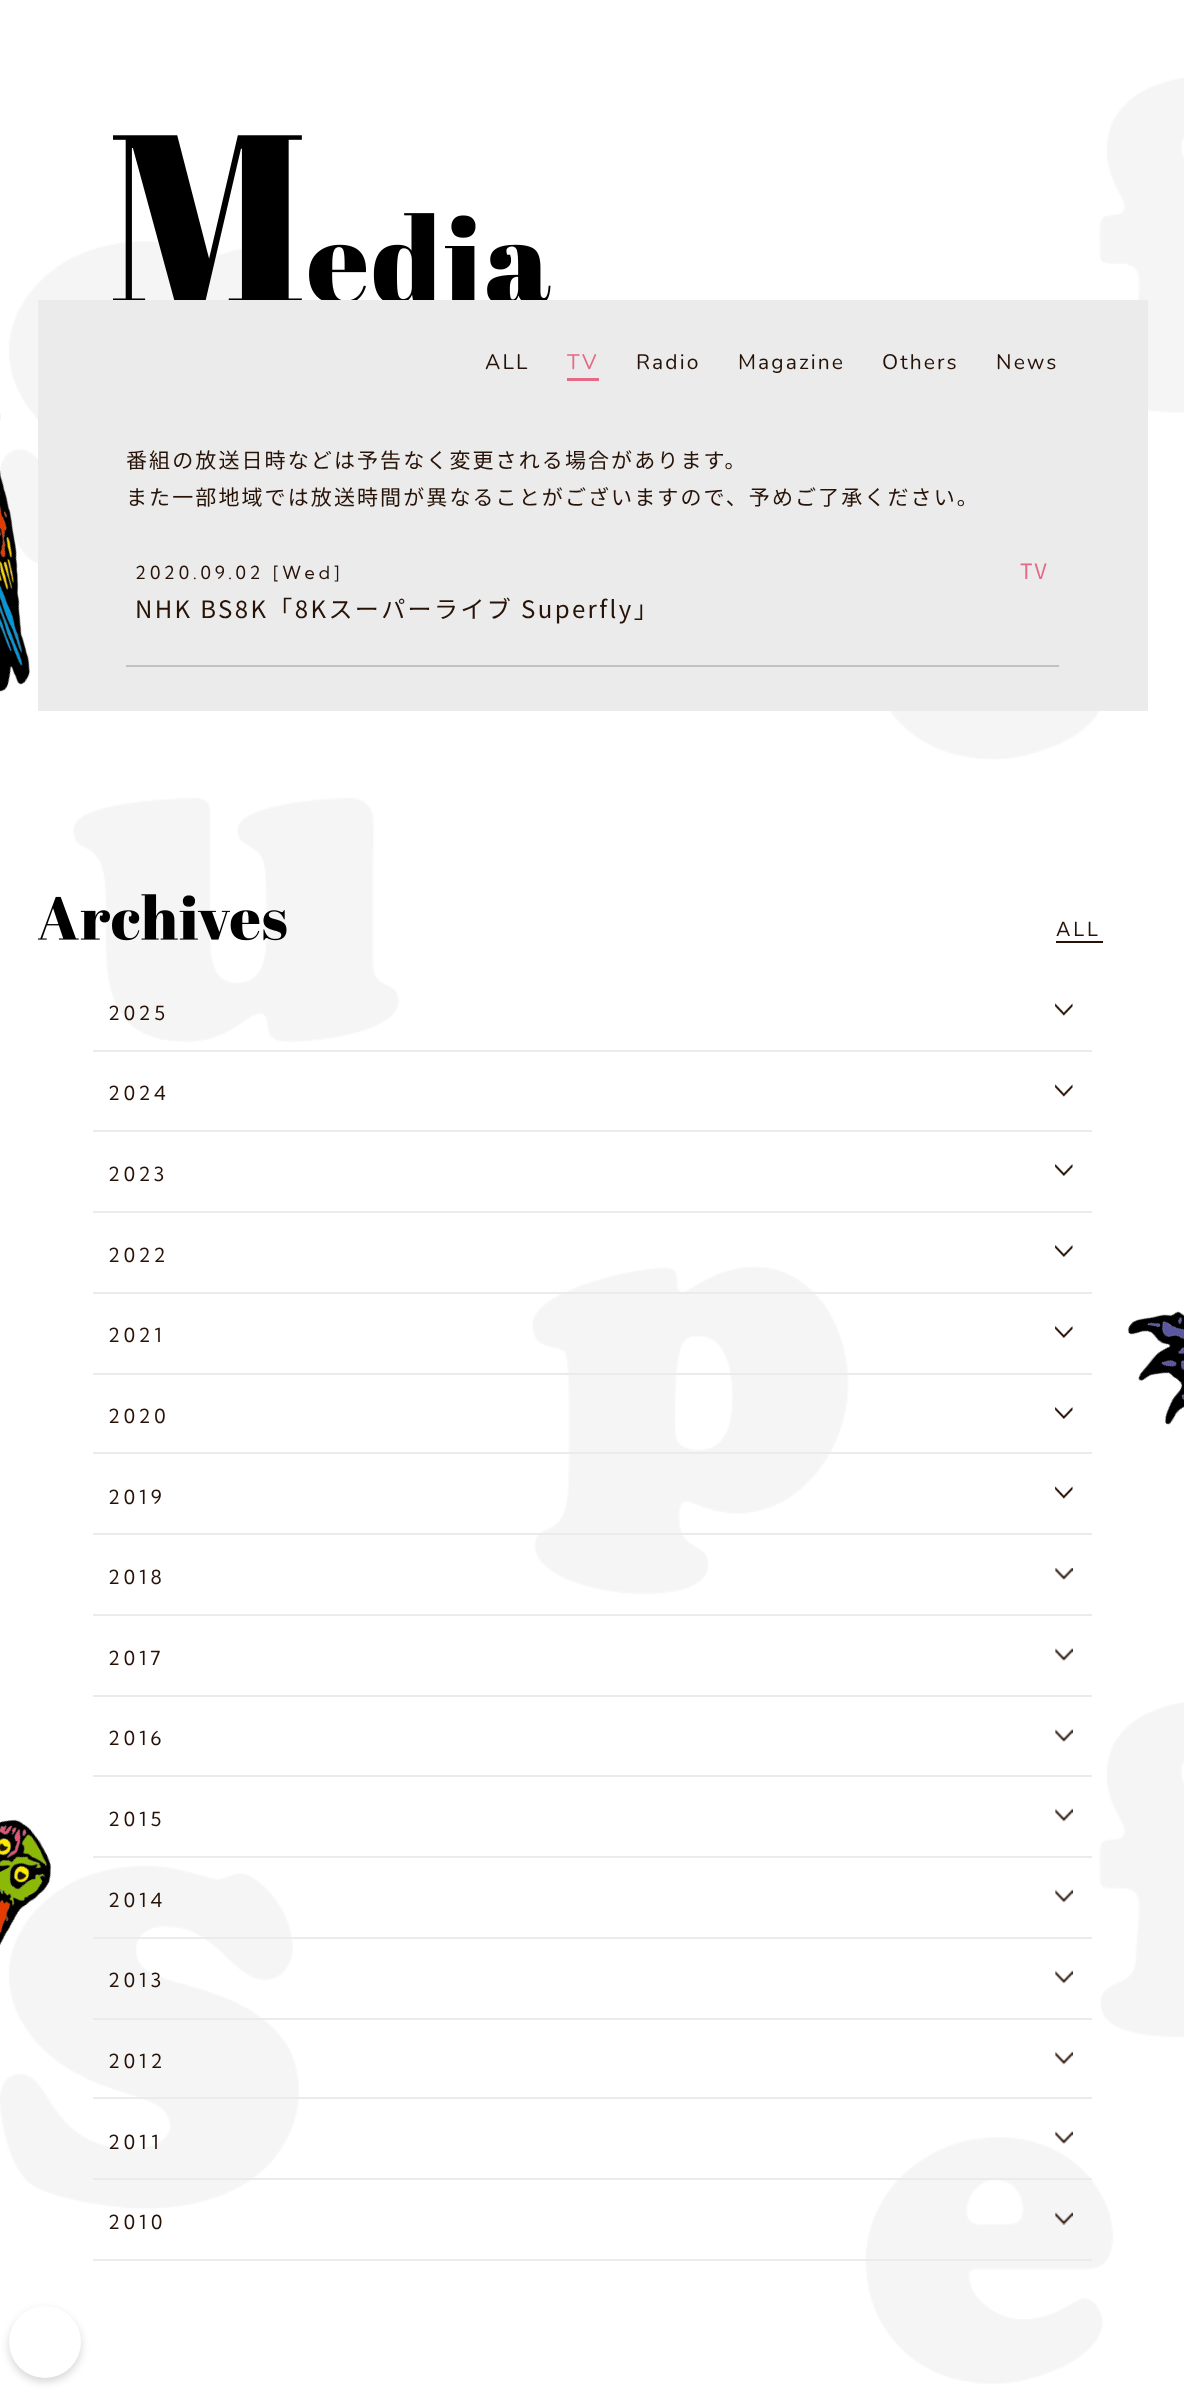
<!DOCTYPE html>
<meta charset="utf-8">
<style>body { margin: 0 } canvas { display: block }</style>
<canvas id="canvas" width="1184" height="2392"></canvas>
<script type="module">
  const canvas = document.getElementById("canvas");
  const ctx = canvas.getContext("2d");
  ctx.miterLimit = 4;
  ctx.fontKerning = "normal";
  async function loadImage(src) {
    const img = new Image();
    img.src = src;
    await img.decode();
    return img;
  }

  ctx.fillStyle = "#ffffff";
  ctx.fillRect(0, 0, 1184, 2392);
  ctx.drawImage(await loadImage("img1.png"), 0, 78, 1184, 2306);
  ctx.drawImage(await loadImage("img2.png"), 0, 413, 30, 279);
  ctx.drawImage(await loadImage("img3.png"), 113, 135, 438, 165);
  ctx.fillStyle = "#ebebeb";
  ctx.fillRect(38, 300, 1110, 411);
  ctx.letterSpacing = "2.1px";
  ctx.font = "21px Nunito";
  ctx.fillStyle = "#271207";
  ctx.fillText("ALL", 485, 369);
  ctx.fillStyle = "#e56a86";
  ctx.fillText("TV", 567, 369);
  ctx.fillRect(567, 378, 32, 3);
  ctx.fillStyle = "#271207";
  ctx.fillText("Radio", 636, 369);
  ctx.fillText("Magazine", 738, 369);
  ctx.fillText("Others", 882, 369);
  ctx.fillText("News", 996, 369);
  ctx.font = "21px Noto Sans JP";
  ctx.fillText("番組の放送日時などは予告なく変更される場合があります。", 126, 468);
  ctx.fillText("また一部地域では放送時間が異なることがございますので、予めご了承ください。", 126, 505);
  ctx.fillStyle = "#c4c0bd";
  ctx.fillRect(126, 665, 933, 2);
  ctx.letterSpacing = "4px";
  ctx.font = "18px Kumbh Sans";
  ctx.fillStyle = "#271207";
  ctx.fillText("2020.09.02 [Wed]", 135, 579);
  ctx.letterSpacing = "2px";
  ctx.font = "21px Noto Sans JP";
  ctx.fillStyle = "#e56a86";
  ctx.fillText("TV", 1020, 579);
  ctx.letterSpacing = "2.4px";
  ctx.font = "24px Noto Sans JP";
  ctx.fillStyle = "#271207";
  ctx.fillText("NHK BS8K「8Kスーパーライブ Superfly」", 135, 618);
  ctx.drawImage(await loadImage("img4.png"), 38, 894, 249, 47);
  ctx.letterSpacing = "3px";
  ctx.font = "19.5px Kumbh Sans";
  ctx.fillText("ALL", 1056, 936);
  ctx.fillRect(1056, 941, 47, 2);
  ctx.fillStyle = "#ebebeb";
  ctx.fillRect(93, 1050, 999, 2);
  ctx.letterSpacing = "4px";
  ctx.fillStyle = "#271207";
  ctx.fillText("2025", 108, 1020);
  ctx.drawImage(await loadImage("img5.png"), 1055, 1003, 18, 13);
  ctx.fillStyle = "#ebebeb";
  ctx.fillRect(93, 1130, 999, 2);
  ctx.fillStyle = "#271207";
  ctx.fillText("2024", 108, 1100);
  ctx.drawImage(await loadImage("img5.png"), 1055, 1084, 18, 13);
  ctx.fillStyle = "#ebebeb";
  ctx.fillRect(93, 1211, 999, 2);
  ctx.fillStyle = "#271207";
  ctx.fillText("2023", 108, 1181);
  ctx.drawImage(await loadImage("img6.png"), 1055, 1164, 18, 12);
  ctx.fillStyle = "#ebebeb";
  ctx.fillRect(93, 1292, 999, 2);
  ctx.fillStyle = "#271207";
  ctx.fillText("2022", 108, 1262);
  ctx.drawImage(await loadImage("img6.png"), 1055, 1245, 18, 12);
  ctx.fillStyle = "#ebebeb";
  ctx.fillRect(93, 1373, 999, 2);
  ctx.fillStyle = "#271207";
  ctx.fillText("2021", 108, 1342);
  ctx.drawImage(await loadImage("img6.png"), 1055, 1326, 18, 12);
  ctx.fillStyle = "#ebebeb";
  ctx.fillRect(93, 1452, 999, 2);
  ctx.fillStyle = "#271207";
  ctx.fillText("2020", 108, 1423);
  ctx.drawImage(await loadImage("img6.png"), 1055, 1407, 18, 12);
  ctx.fillStyle = "#ebebeb";
  ctx.fillRect(93, 1533, 999, 2);
  ctx.fillStyle = "#271207";
  ctx.fillText("2019", 108, 1504);
  ctx.drawImage(await loadImage("img5.png"), 1055, 1486, 18, 13);
  ctx.fillStyle = "#ebebeb";
  ctx.fillRect(93, 1614, 999, 2);
  ctx.fillStyle = "#271207";
  ctx.fillText("2018", 108, 1584);
  ctx.drawImage(await loadImage("img7.png"), 1055, 1568, 18, 12);
  ctx.fillStyle = "#ebebeb";
  ctx.fillRect(93, 1695, 999, 2);
  ctx.fillStyle = "#271207";
  ctx.fillText("2017", 108, 1665);
  ctx.drawImage(await loadImage("img8.png"), 1055, 1648, 18, 13);
  ctx.fillStyle = "#ebebeb";
  ctx.fillRect(93, 1775, 999, 2);
  ctx.fillStyle = "#271207";
  ctx.fillText("2016", 108, 1745);
  ctx.drawImage(await loadImage("img8.png"), 1055, 1729, 18, 13);
  ctx.fillStyle = "#ebebeb";
  ctx.fillRect(93, 1856, 999, 2);
  ctx.fillStyle = "#271207";
  ctx.fillText("2015", 108, 1826);
  ctx.drawImage(await loadImage("img9.png"), 1055, 1808, 18, 14);
  ctx.fillStyle = "#ebebeb";
  ctx.fillRect(93, 1937, 999, 2);
  ctx.fillStyle = "#271207";
  ctx.fillText("2014", 108, 1907);
  ctx.drawImage(await loadImage("img9.png"), 1055, 1889, 18, 14);
  ctx.fillStyle = "#ebebeb";
  ctx.fillRect(93, 2018, 999, 2);
  ctx.fillStyle = "#271207";
  ctx.fillText("2013", 108, 1987);
  ctx.drawImage(await loadImage("img9.png"), 1055, 1970, 18, 14);
  ctx.fillStyle = "#ebebeb";
  ctx.fillRect(93, 2097, 999, 2);
  ctx.fillStyle = "#271207";
  ctx.fillText("2012", 108, 2068);
  ctx.drawImage(await loadImage("img9.png"), 1055, 2051, 18, 14);
  ctx.fillStyle = "#ebebeb";
  ctx.fillRect(93, 2178, 999, 2);
  ctx.fillStyle = "#271207";
  ctx.fillText("2011", 108, 2149);
  ctx.drawImage(await loadImage("img8.png"), 1055, 2131, 18, 13);
  ctx.fillStyle = "#ebebeb";
  ctx.fillRect(93, 2259, 999, 2);
  ctx.fillStyle = "#271207";
  ctx.fillText("2010", 108, 2229);
  ctx.drawImage(await loadImage("img10.png"), 1055, 2212, 18, 13);
  ctx.drawImage(await loadImage("img11.png"), 1127, 1311, 57, 114);
  ctx.drawImage(await loadImage("img12.png"), 0, 1819, 52, 126);
  ctx.fillStyle = "rgba(0, 0, 0, 0.16)";
  ctx.filter = "blur(4.5px)";
  ctx.beginPath();
  ctx.roundRect(9, 2310, 72, 72, 36);
  ctx.fill();
  ctx.filter = "none";
  ctx.fillStyle = "#ffffff";
  ctx.beginPath();
  ctx.arc(45, 2342, 36, 0, Math.PI * 2);
  ctx.fill();
</script>
